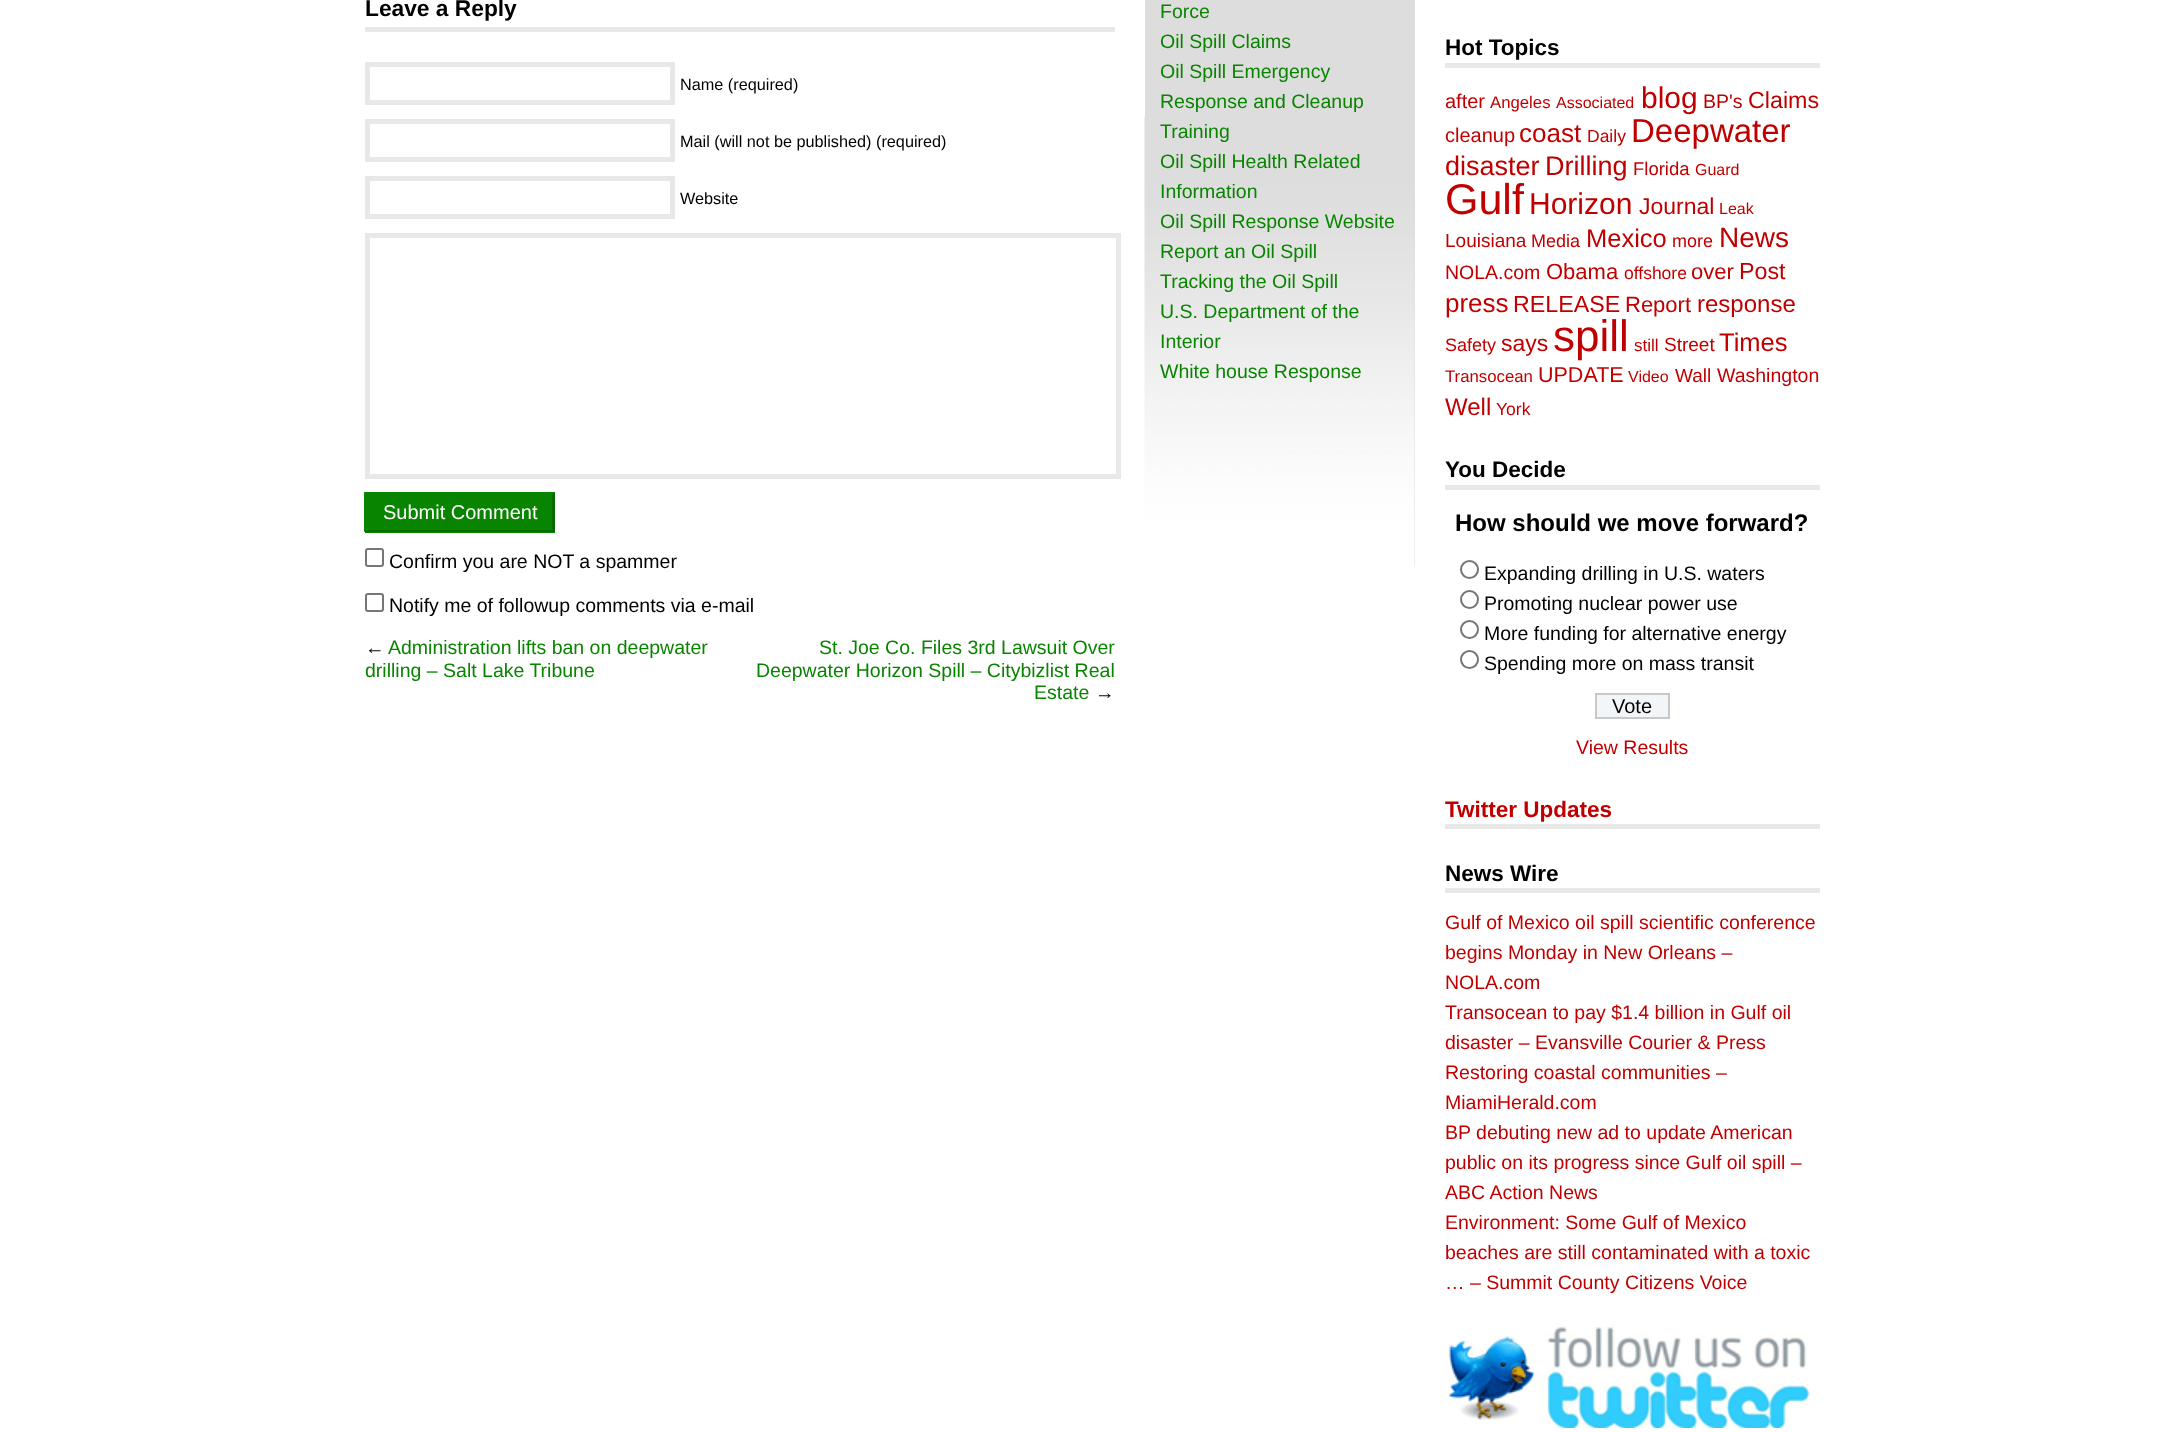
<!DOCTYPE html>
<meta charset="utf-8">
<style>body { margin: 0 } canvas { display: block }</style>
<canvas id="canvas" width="2184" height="1432"></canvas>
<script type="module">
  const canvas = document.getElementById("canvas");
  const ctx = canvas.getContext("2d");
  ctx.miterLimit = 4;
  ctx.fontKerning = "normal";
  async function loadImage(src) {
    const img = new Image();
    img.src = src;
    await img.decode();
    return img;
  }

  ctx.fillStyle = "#ffffff";
  ctx.fillRect(0, 0, 2184, 1432);
  ctx.fillStyle = "#e8e8e8";
  ctx.fillRect(365, 27, 750, 5);
  ctx.font = "bold 22.75px Liberation Sans";
  ctx.fillStyle = "#000000";
  ctx.fillText("Leave a Reply", 365, 16);
  ctx.strokeStyle = "#e8e8e8";
  ctx.lineWidth = 5;
  ctx.strokeRect(367.5, 64.5, 305, 38);
  ctx.font = "16.25px Liberation Sans";
  ctx.fillText("Name (required)", 680, 90);
  ctx.strokeRect(367.5, 121.5, 305, 38);
  ctx.fillText("Mail (will not be published) (required)", 680, 147);
  ctx.strokeRect(367.5, 178.5, 305, 38);
  ctx.fillText("Website", 680, 204);
  ctx.strokeRect(367.5, 235.5, 751, 241);
  ctx.fillStyle = "#098400";
  ctx.fillRect(365, 492, 190, 41);
  ctx.beginPath();
  ctx.moveTo(364, 492);
  ctx.lineTo(555, 492);
  ctx.lineTo(552, 495);
  ctx.lineTo(368, 495);
  ctx.closePath();
  ctx.fill();
  ctx.fillStyle = "#076c00";
  ctx.beginPath();
  ctx.moveTo(555, 492);
  ctx.lineTo(555, 532);
  ctx.lineTo(552, 530);
  ctx.lineTo(552, 495);
  ctx.closePath();
  ctx.fill();
  ctx.beginPath();
  ctx.moveTo(555, 532);
  ctx.lineTo(364, 532);
  ctx.lineTo(368, 530);
  ctx.lineTo(552, 530);
  ctx.closePath();
  ctx.fill();
  ctx.fillStyle = "#098400";
  ctx.beginPath();
  ctx.moveTo(364, 532);
  ctx.lineTo(364, 492);
  ctx.lineTo(368, 495);
  ctx.lineTo(368, 530);
  ctx.closePath();
  ctx.fill();
  ctx.font = "20px Liberation Sans";
  ctx.fillStyle = "#ffffff";
  ctx.fillText("Submit Comment", 383, 519);
  ctx.beginPath();
  ctx.roundRect(366, 549, 17, 17, 2);
  ctx.strokeStyle = "#767676";
  ctx.lineWidth = 2;
  ctx.stroke();
  ctx.font = "19.5px Liberation Sans";
  ctx.fillStyle = "#000000";
  ctx.fillText("Confirm you are NOT a spammer", 389, 568);
  ctx.beginPath();
  ctx.roundRect(366, 594, 17, 17, 2);
  ctx.stroke();
  ctx.fillText("Notify me of followup comments via e-mail", 389, 612);
  ctx.fillText("←", 365, 654);
  ctx.fillStyle = "#098400";
  ctx.fillText("Administration lifts ban on deepwater", 388, 654);
  ctx.fillText("drilling – Salt Lake Tribune", 365, 677);
  ctx.fillText("St. Joe Co. Files 3rd Lawsuit Over", 819, 654);
  ctx.fillText("Deepwater Horizon Spill – Citybizlist Real", 756, 677);
  ctx.fillText("Estate", 1034, 699);
  ctx.fillStyle = "#000000";
  ctx.fillText("→", 1095, 699);
  ctx.fillStyle = "#dddddd";
  ctx.fillRect(1145, 0, 270, 567);
  ctx.drawImage(await loadImage("img1.png"), 1144, 117, 271, 450);
  ctx.fillStyle = "#098400";
  ctx.fillText("Force", 1160, 18);
  ctx.fillText("Oil Spill Claims", 1160, 48);
  ctx.fillText("Oil Spill Emergency", 1160, 78);
  ctx.fillText("Response and Cleanup", 1160, 108);
  ctx.fillText("Training", 1160, 138);
  ctx.fillText("Oil Spill Health Related", 1160, 168);
  ctx.fillText("Information", 1160, 198);
  ctx.fillText("Oil Spill Response Website", 1160, 228);
  ctx.fillText("Report an Oil Spill", 1160, 258);
  ctx.fillText("Tracking the Oil Spill", 1160, 288);
  ctx.fillText("U.S. Department of the", 1160, 318);
  ctx.fillText("Interior", 1160, 348);
  ctx.fillText("White house Response", 1160, 378);
  ctx.fillStyle = "#e8e8e8";
  ctx.fillRect(1445, 63, 375, 5);
  ctx.font = "bold 22.5px Liberation Sans";
  ctx.fillStyle = "#000000";
  ctx.fillText("Hot Topics", 1445, 55);
  ctx.font = "20px Liberation Sans";
  ctx.fillStyle = "#c00000";
  ctx.fillText("after", 1445, 108);
  ctx.font = "16.75px Liberation Sans";
  ctx.fillText("Angeles", 1490, 108);
  ctx.font = "16px Liberation Sans";
  ctx.fillText("Associated", 1556, 108);
  ctx.font = "30px Liberation Sans";
  ctx.fillText("blog", 1641, 108);
  ctx.font = "19.5px Liberation Sans";
  ctx.fillText("BP's", 1703, 108);
  ctx.font = "23.25px Liberation Sans";
  ctx.fillText("Claims", 1748, 108);
  ctx.font = "20px Liberation Sans";
  ctx.fillText("cleanup", 1445, 142);
  ctx.font = "26px Liberation Sans";
  ctx.fillText("coast", 1519, 142);
  ctx.font = "17.5px Liberation Sans";
  ctx.fillText("Daily", 1587, 142);
  ctx.font = "33px Liberation Sans";
  ctx.fillText("Deepwater", 1631, 142);
  ctx.font = "27px Liberation Sans";
  ctx.fillText("disaster", 1445, 175);
  ctx.fillText("Drilling", 1545, 175);
  ctx.font = "18.5px Liberation Sans";
  ctx.fillText("Florida", 1633, 175);
  ctx.font = "16px Liberation Sans";
  ctx.fillText("Guard", 1695, 175);
  ctx.font = "43px Liberation Sans";
  ctx.fillText("Gulf", 1445, 214);
  ctx.font = "30px Liberation Sans";
  ctx.fillText("Horizon", 1529, 214);
  ctx.font = "23px Liberation Sans";
  ctx.fillText("Journal", 1639, 214);
  ctx.font = "16px Liberation Sans";
  ctx.fillText("Leak", 1719, 214);
  ctx.font = "19px Liberation Sans";
  ctx.fillText("Louisiana", 1445, 247);
  ctx.font = "18px Liberation Sans";
  ctx.fillText("Media", 1531, 247);
  ctx.font = "25.5px Liberation Sans";
  ctx.fillText("Mexico", 1586, 247);
  ctx.font = "18px Liberation Sans";
  ctx.fillText("more", 1672, 247);
  ctx.font = "28px Liberation Sans";
  ctx.fillText("News", 1719, 247);
  ctx.font = "19.5px Liberation Sans";
  ctx.fillText("NOLA.com", 1445, 279);
  ctx.font = "22px Liberation Sans";
  ctx.fillText("Obama", 1546, 279);
  ctx.font = "17.5px Liberation Sans";
  ctx.fillText("offshore", 1624, 279);
  ctx.font = "22px Liberation Sans";
  ctx.fillText("over", 1691, 279);
  ctx.font = "23.25px Liberation Sans";
  ctx.fillText("Post", 1739, 279);
  ctx.font = "26px Liberation Sans";
  ctx.fillText("press", 1445, 312);
  ctx.font = "23.25px Liberation Sans";
  ctx.fillText("RELEASE", 1513, 312);
  ctx.font = "22px Liberation Sans";
  ctx.fillText("Report", 1625, 312);
  ctx.font = "24px Liberation Sans";
  ctx.fillText("response", 1697, 312);
  ctx.font = "18px Liberation Sans";
  ctx.fillText("Safety", 1445, 351);
  ctx.font = "23px Liberation Sans";
  ctx.fillText("says", 1501, 351);
  ctx.font = "44px Liberation Sans";
  ctx.fillText("spill", 1553, 351);
  ctx.font = "17px Liberation Sans";
  ctx.fillText("still", 1634, 351);
  ctx.font = "19px Liberation Sans";
  ctx.fillText("Street", 1664, 351);
  ctx.font = "25.5px Liberation Sans";
  ctx.fillText("Times", 1719, 351);
  ctx.font = "16.75px Liberation Sans";
  ctx.fillText("Transocean", 1445, 382);
  ctx.font = "21.5px Liberation Sans";
  ctx.fillText("UPDATE", 1538, 382);
  ctx.font = "16px Liberation Sans";
  ctx.fillText("Video", 1628, 382);
  ctx.font = "19px Liberation Sans";
  ctx.fillText("Wall", 1675, 382);
  ctx.font = "19.5px Liberation Sans";
  ctx.fillText("Washington", 1717, 382);
  ctx.font = "24px Liberation Sans";
  ctx.fillText("Well", 1445, 415);
  ctx.font = "17.5px Liberation Sans";
  ctx.fillText("York", 1496, 415);
  ctx.fillStyle = "#e8e8e8";
  ctx.fillRect(1445, 485, 375, 5);
  ctx.font = "bold 22.5px Liberation Sans";
  ctx.fillStyle = "#000000";
  ctx.fillText("You Decide", 1445, 477);
  ctx.font = "bold 24px Liberation Sans";
  ctx.fillText("How should we move forward?", 1455, 531);
  ctx.beginPath();
  ctx.arc(1469.5, 569.5, 8.5, 0, Math.PI * 2);
  ctx.stroke();
  ctx.font = "19.5px Liberation Sans";
  ctx.fillText("Expanding drilling in U.S. waters", 1484, 580);
  ctx.beginPath();
  ctx.arc(1469.5, 599.5, 8.5, 0, Math.PI * 2);
  ctx.stroke();
  ctx.fillText("Promoting nuclear power use", 1484, 610);
  ctx.beginPath();
  ctx.arc(1469.5, 629.5, 8.5, 0, Math.PI * 2);
  ctx.stroke();
  ctx.fillText("More funding for alternative energy", 1484, 640);
  ctx.beginPath();
  ctx.arc(1469.5, 659.5, 8.5, 0, Math.PI * 2);
  ctx.stroke();
  ctx.fillText("Spending more on mass transit", 1484, 670);
  ctx.fillStyle = "#f3f6f8";
  ctx.beginPath();
  ctx.rect(1596, 694, 73, 24);
  ctx.fill();
  ctx.strokeStyle = "#c8c8c8";
  ctx.stroke();
  ctx.font = "20px Liberation Sans";
  ctx.fillStyle = "#000000";
  ctx.fillText("Vote", 1612, 713);
  ctx.font = "19.5px Liberation Sans";
  ctx.fillStyle = "#c00000";
  ctx.fillText("View Results", 1576, 754);
  ctx.fillStyle = "#e8e8e8";
  ctx.fillRect(1445, 824, 375, 5);
  ctx.font = "bold 22.5px Liberation Sans";
  ctx.fillStyle = "#c00000";
  ctx.fillText("Twitter Updates", 1445, 817);
  ctx.fillStyle = "#e8e8e8";
  ctx.fillRect(1445, 888, 375, 5);
  ctx.fillStyle = "#000000";
  ctx.fillText("News Wire", 1445, 881);
  ctx.font = "19.5px Liberation Sans";
  ctx.fillStyle = "#c00000";
  ctx.fillText("Gulf of Mexico oil spill scientific conference", 1445, 929);
  ctx.fillText("begins Monday in New Orleans –", 1445, 959);
  ctx.fillText("NOLA.com", 1445, 989);
  ctx.fillText("Transocean to pay $1.4 billion in Gulf oil", 1445, 1019);
  ctx.fillText("disaster – Evansville Courier & Press", 1445, 1049);
  ctx.fillText("Restoring coastal communities –", 1445, 1079);
  ctx.fillText("MiamiHerald.com", 1445, 1109);
  ctx.fillText("BP debuting new ad to update American", 1445, 1139);
  ctx.fillText("public on its progress since Gulf oil spill –", 1445, 1169);
  ctx.fillText("ABC Action News", 1445, 1199);
  ctx.fillText("Environment: Some Gulf of Mexico", 1445, 1229);
  ctx.fillText("beaches are still contaminated with a toxic", 1445, 1259);
  ctx.fillText("… – Summit County Citizens Voice", 1445, 1289);
  ctx.drawImage(await loadImage("img2.png"), 1448, 1327, 362, 101);
</script>
